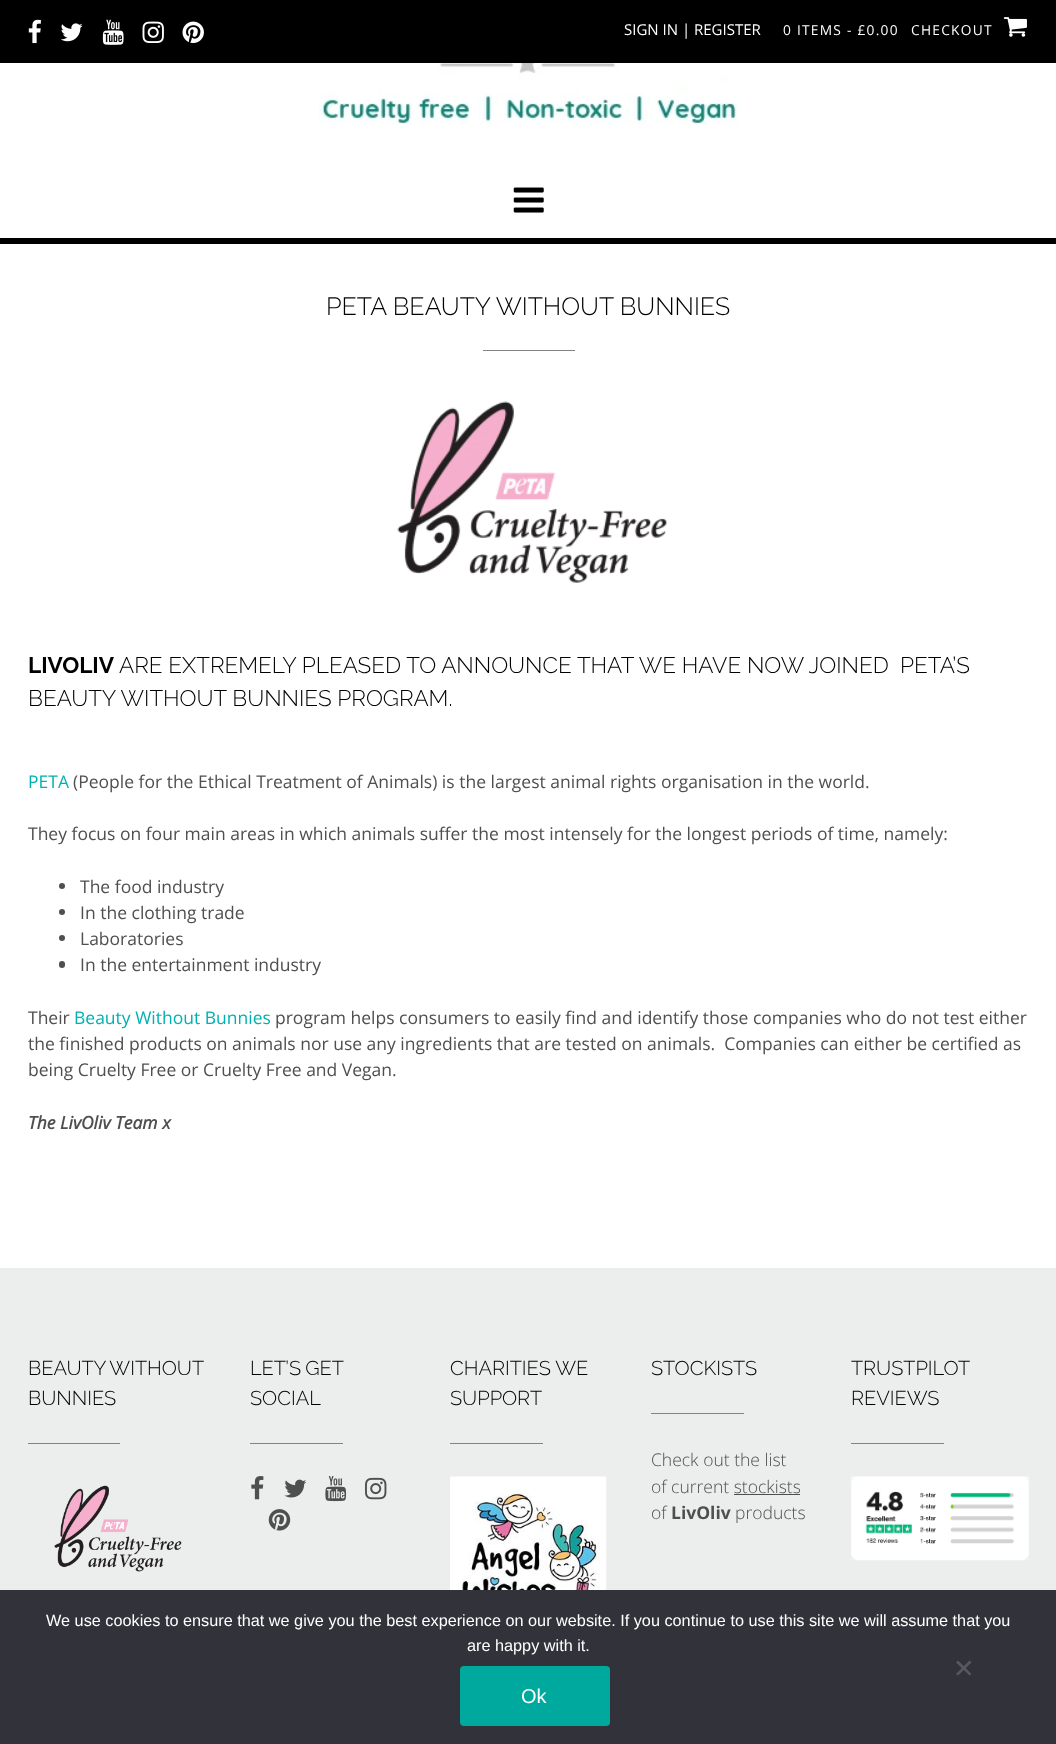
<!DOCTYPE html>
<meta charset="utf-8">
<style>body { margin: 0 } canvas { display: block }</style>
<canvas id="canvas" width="1056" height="1744"></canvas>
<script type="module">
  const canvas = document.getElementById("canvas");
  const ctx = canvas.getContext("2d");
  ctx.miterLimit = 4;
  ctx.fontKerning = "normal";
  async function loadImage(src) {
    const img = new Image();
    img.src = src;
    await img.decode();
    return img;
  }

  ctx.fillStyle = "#ffffff";
  ctx.fillRect(0, 0, 1056, 1744);
  ctx.fillStyle = "#000000";
  ctx.fillRect(0, 0, 1056, 63);
  ctx.drawImage(await loadImage("img1.png"), 28, 19, 13, 25);
  ctx.drawImage(await loadImage("img2.png"), 60, 23, 23, 19);
  ctx.drawImage(await loadImage("img3.png"), 102, 19, 22, 26);
  ctx.drawImage(await loadImage("img4.png"), 142, 21, 22, 22);
  ctx.drawImage(await loadImage("img5.png"), 182, 21, 22, 22);
  ctx.font = "15px Open Sans";
  ctx.fillStyle = "#ffffff";
  ctx.fillText("SIGN IN | REGISTER", 624, 35);
  ctx.letterSpacing = "1.25px";
  ctx.font = "13.75px Open Sans";
  ctx.fillText("0 ITEMS - £0.00", 783, 35);
  ctx.fillText("CHECKOUT", 911, 35);
  ctx.drawImage(await loadImage("img6.png"), 1003, 17, 24, 20);
  ctx.drawImage(await loadImage("img7.png"), 319, 63, 419, 62);
  ctx.fillStyle = "#000000";
  ctx.fillRect(0, 238, 1056, 6);
  ctx.drawImage(await loadImage("img8.png"), 513, 187, 31, 26);
  ctx.letterSpacing = "0px";
  ctx.font = "300 25px Raleway";
  ctx.fillText("PETA BEAUTY WITHOUT BUNNIES", 326, 315);
  ctx.fillStyle = "#828387";
  ctx.fillRect(483, 350, 92, 1);
  ctx.drawImage(await loadImage("img9.png"), 397, 401, 270, 182);
  ctx.font = "bold 22.5px Raleway";
  ctx.fillStyle = "#000000";
  ctx.fillText("LIVOLIV", 28, 673);
  ctx.font = "300 22.5px Raleway";
  ctx.fillText("ARE EXTREMELY PLEASED TO ANNOUNCE THAT WE HAVE NOW JOINED", 119, 673);
  ctx.fillText("PETA’S", 900, 673);
  ctx.fillText("BEAUTY WITHOUT BUNNIES PROGRAM.", 28, 706);
  ctx.font = "17.5px Open Sans";
  ctx.fillStyle = "#01b1b2";
  ctx.fillText("PETA", 28, 788);
  ctx.fillStyle = "#4f4f4f";
  ctx.fillText("(People for the Ethical Treatment of Animals) is the largest animal rights organisation in the world.", 73, 788);
  ctx.fillText("They focus on four main areas in which animals suffer the most intensely for the longest periods of time, namely:", 28, 840);
  ctx.beginPath();
  ctx.arc(62, 886, 3, 0, Math.PI * 2);
  ctx.fill();
  ctx.fillText("The food industry", 80, 893);
  ctx.beginPath();
  ctx.arc(62, 912, 3, 0, Math.PI * 2);
  ctx.fill();
  ctx.fillText("In the clothing trade", 80, 919);
  ctx.beginPath();
  ctx.arc(62, 938, 3, 0, Math.PI * 2);
  ctx.fill();
  ctx.fillText("Laboratories", 80, 945);
  ctx.beginPath();
  ctx.roundRect(59, 961, 6, 7, 3);
  ctx.fill();
  ctx.fillText("In the entertainment industry", 80, 971);
  ctx.fillText("Their", 28, 1024);
  ctx.fillStyle = "#01b1b2";
  ctx.fillText("Beauty Without Bunnies", 74, 1024);
  ctx.fillStyle = "#4f4f4f";
  ctx.fillText("program helps consumers to easily find and identify those companies who do not test either", 275, 1024);
  ctx.fillText("the finished products on animals nor use any ingredients that are tested on animals.  Companies can either be certified as", 28, 1050);
  ctx.fillText("being Cruelty Free or Cruelty Free and Vegan.", 28, 1076);
  ctx.font = "italic bold 17.5px Open Sans";
  ctx.fillText("The LivOliv Team x", 28, 1129);
  ctx.fillStyle = "#eceded";
  ctx.fillRect(0, 1268, 1056, 322);
  ctx.wordSpacing = "-1px";
  ctx.font = "300 20px Raleway";
  ctx.fillStyle = "#000000";
  ctx.fillText("BEAUTY WITHOUT", 28, 1375);
  ctx.wordSpacing = "0px";
  ctx.fillText("BUNNIES", 28, 1405);
  ctx.fillStyle = "#828387";
  ctx.fillRect(28, 1443, 92, 1);
  ctx.drawImage(await loadImage("img10.png"), 54, 1485, 128, 87);
  ctx.wordSpacing = "-1px";
  ctx.fillStyle = "#000000";
  ctx.fillText("LET’S GET", 250, 1375);
  ctx.wordSpacing = "0px";
  ctx.fillText("SOCIAL", 250, 1405);
  ctx.fillStyle = "#828387";
  ctx.fillRect(250, 1443, 93, 1);
  ctx.drawImage(await loadImage("img11.png"), 251, 1476, 13, 24);
  ctx.drawImage(await loadImage("img12.png"), 284, 1479, 23, 19);
  ctx.drawImage(await loadImage("img13.png"), 325, 1476, 22, 26);
  ctx.drawImage(await loadImage("img14.png"), 365, 1477, 22, 23);
  ctx.drawImage(await loadImage("img15.png"), 268, 1509, 23, 22);
  ctx.fillStyle = "#000000";
  ctx.fillText("CHARITIES WE", 450, 1375);
  ctx.fillText("SUPPORT", 450, 1405);
  ctx.fillStyle = "#828387";
  ctx.fillRect(450, 1443, 93, 1);
  ctx.drawImage(await loadImage("img16.png"), 450, 1476, 157, 114);
  ctx.fillStyle = "#000000";
  ctx.fillText("STOCKISTS", 651, 1375);
  ctx.fillStyle = "#828387";
  ctx.fillRect(651, 1413, 93, 1);
  ctx.font = "300 17.5px Open Sans";
  ctx.fillStyle = "#4f4f4f";
  ctx.fillText("Check out the list", 651, 1466);
  ctx.fillText("of current stockists", 651, 1493);
  ctx.fillRect(734, 1494, 66, 1);
  ctx.fillText("of", 651, 1519);
  ctx.font = "bold 17.5px Open Sans";
  ctx.fillText("LivOliv", 671, 1519);
  ctx.font = "300 17.5px Open Sans";
  ctx.fillText("products", 735, 1519);
  ctx.font = "300 20px Raleway";
  ctx.fillStyle = "#000000";
  ctx.fillText("TRUSTPILOT", 851, 1375);
  ctx.fillText("REVIEWS", 851, 1405);
  ctx.fillStyle = "#828387";
  ctx.fillRect(851, 1443, 93, 1);
  ctx.drawImage(await loadImage("img17.png"), 851, 1476, 178, 85);
  ctx.fillStyle = "#32323a";
  ctx.fillRect(0, 1590, 1056, 154);
  ctx.font = "16.25px Liberation Sans";
  ctx.fillStyle = "#ffffff";
  ctx.fillText("We use cookies to ensure that we give you the best experience on our website. If you continue to use this site we will assume that you", 46, 1626);
  ctx.fillText("are happy with it.", 467, 1651);
  ctx.fillStyle = "#59595d";
  ctx.beginPath();
  ctx.moveTo(969.5, 1660.5);
  ctx.lineTo(971.5, 1662.5);
  ctx.lineTo(958, 1675.5);
  ctx.lineTo(956, 1674);
  ctx.closePath();
  ctx.fill();
  ctx.beginPath();
  ctx.moveTo(956, 1662.5);
  ctx.lineTo(958, 1660.5);
  ctx.lineTo(971.5, 1674);
  ctx.lineTo(969.5, 1675.5);
  ctx.closePath();
  ctx.fill();
  ctx.fillStyle = "#00a99d";
  ctx.beginPath();
  ctx.roundRect(460, 1666, 150, 60, 4);
  ctx.fill();
  ctx.font = "20px Liberation Sans";
  ctx.fillStyle = "#ffffff";
  ctx.fillText("Ok", 521, 1703);
</script>
